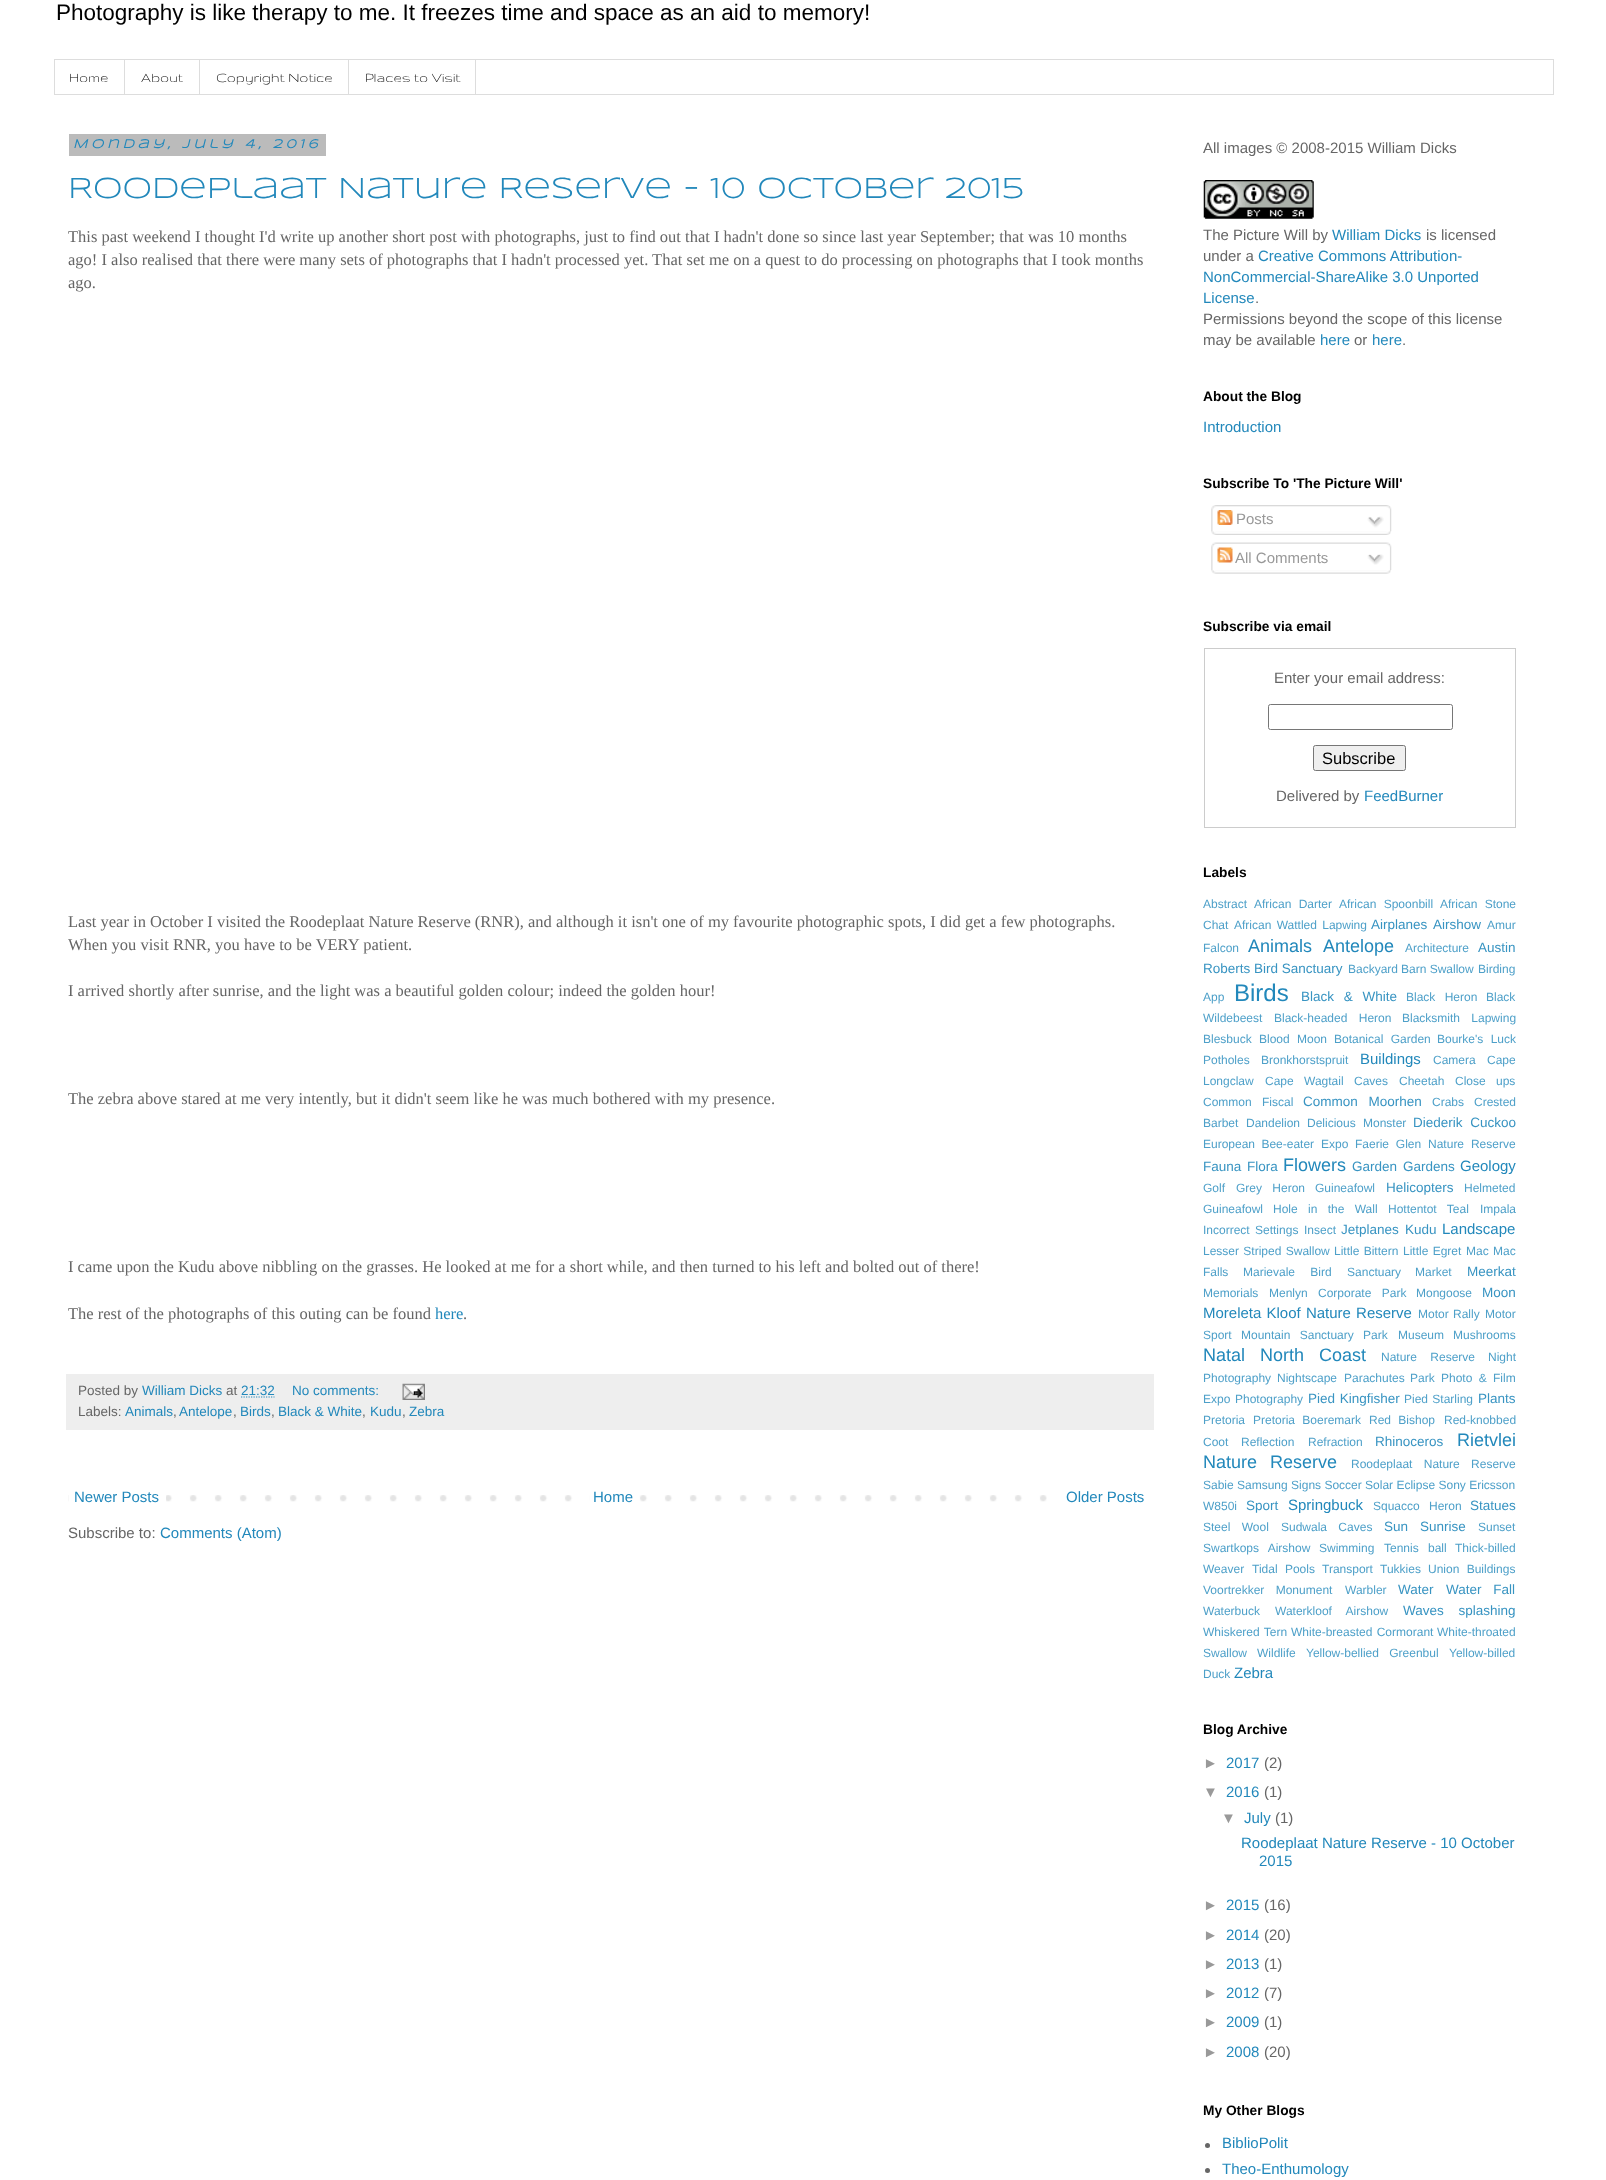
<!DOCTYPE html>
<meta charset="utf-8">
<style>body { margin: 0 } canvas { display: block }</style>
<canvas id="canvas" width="1606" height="2180"></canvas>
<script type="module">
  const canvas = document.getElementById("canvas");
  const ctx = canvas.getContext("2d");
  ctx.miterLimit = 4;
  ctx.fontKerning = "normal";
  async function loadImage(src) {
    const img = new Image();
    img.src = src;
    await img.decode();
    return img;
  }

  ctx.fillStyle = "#ffffff";
  ctx.fillRect(0, 0, 1606, 2180);
  ctx.font = "22.5px Liberation Sans";
  ctx.fillStyle = "#000000";
  ctx.fillText("Photography is like therapy to me. It freezes time and space as an aid to memory!", 56, 20);
  ctx.strokeStyle = "#dddddd";
  ctx.strokeRect(54.5, 59.5, 1499, 35);
  ctx.fillStyle = "#dddddd";
  ctx.fillRect(124, 60, 1, 34);
  ctx.font = "15px Gruppo";
  ctx.fillStyle = "#000000";
  ctx.fillText("Home", 69, 82);
  ctx.fillStyle = "#dddddd";
  ctx.fillRect(199, 60, 1, 34);
  ctx.fillStyle = "#000000";
  ctx.fillText("About", 141, 82);
  ctx.fillStyle = "#dddddd";
  ctx.fillRect(348, 60, 1, 34);
  ctx.fillStyle = "#000000";
  ctx.fillText("Copyright Notice", 216, 82);
  ctx.fillStyle = "#dddddd";
  ctx.fillRect(475, 60, 1, 34);
  ctx.fillStyle = "#000000";
  ctx.fillText("Places to Visit", 365, 82);
  ctx.fillStyle = "#bbbbbb";
  ctx.fillRect(69, 134, 257, 22);
  ctx.letterSpacing = "3.75px";
  ctx.font = "italic bold 12.5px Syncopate";
  ctx.fillStyle = "#2288bb";
  ctx.fillText("Monday, July 4, 2016", 73, 148);
  ctx.letterSpacing = "0px";
  ctx.font = "30px Syncopate";
  ctx.fillText("Roodeplaat Nature Reserve - 10 October 2015", 68, 198);
  ctx.font = "16.5px Liberation Serif";
  ctx.fillStyle = "#666666";
  ctx.fillText("This past weekend I thought I'd write up another short post with photographs, just to find out that I hadn't done so since last year September; that was 10 months", 68, 242);
  ctx.fillText("ago! I also realised that there were many sets of photographs that I hadn't processed yet. That set me on a quest to do processing on photographs that I took months", 68, 265);
  ctx.fillText("ago.", 68, 288);
  ctx.fillText("Last year in October I visited the Roodeplaat Nature Reserve (RNR), and although it isn't one of my favourite photographic spots, I did get a few photographs.", 68, 927);
  ctx.fillText("When you visit RNR, you have to be VERY patient.", 68, 950);
  ctx.fillText("I arrived shortly after sunrise, and the light was a beautiful golden colour; indeed the golden hour!", 68, 996);
  ctx.fillText("The zebra above stared at me very intently, but it didn't seem like he was much bothered with my presence.", 68, 1104);
  ctx.fillText("I came upon the Kudu above nibbling on the grasses. He looked at me for a short while, and then turned to his left and bolted out of there!", 68, 1272);
  ctx.fillText("The rest of the photographs of this outing can be found", 68, 1319);
  ctx.fillStyle = "#2288bb";
  ctx.fillText("here", 435, 1319);
  ctx.fillStyle = "#666666";
  ctx.fillText(".", 463, 1319);
  ctx.fillStyle = "#eeeeee";
  ctx.fillRect(66, 1374, 1088, 56);
  ctx.font = "13.5px Liberation Sans";
  ctx.fillStyle = "#666666";
  ctx.fillText("Posted by", 78, 1395);
  ctx.fillStyle = "#2288bb";
  ctx.fillText("William Dicks", 142, 1395);
  ctx.fillStyle = "#666666";
  ctx.fillText("at", 226, 1395);
  ctx.fillStyle = "#2288bb";
  ctx.fillText("21:32", 241, 1395);
  ctx.beginPath();
  ctx.moveTo(241, 1397);
  ctx.lineTo(274.5, 1397);
  ctx.strokeStyle = "#2288bb";
  ctx.lineWidth = 1.2;
  ctx.setLineDash([1.25, 1.25]);
  ctx.stroke();
  ctx.fillText("No comments:", 292, 1395);
  ctx.drawImage(await loadImage("img1.png"), 402, 1383, 23, 17);
  ctx.fillStyle = "#666666";
  ctx.fillText("Labels:", 78, 1416);
  ctx.fillStyle = "#2288bb";
  ctx.fillText("Animals", 125, 1416);
  ctx.fillStyle = "#666666";
  ctx.fillText(",", 173, 1416);
  ctx.fillStyle = "#2288bb";
  ctx.fillText("Antelope", 179, 1416);
  ctx.fillStyle = "#666666";
  ctx.fillText(",", 233, 1416);
  ctx.fillStyle = "#2288bb";
  ctx.fillText("Birds", 240, 1416);
  ctx.fillStyle = "#666666";
  ctx.fillText(",", 271, 1416);
  ctx.fillStyle = "#2288bb";
  ctx.fillText("Black & White", 278, 1416);
  ctx.fillStyle = "#666666";
  ctx.fillText(",", 362, 1416);
  ctx.fillStyle = "#2288bb";
  ctx.fillText("Kudu", 370, 1416);
  ctx.fillStyle = "#666666";
  ctx.fillText(",", 402, 1416);
  ctx.fillStyle = "#2288bb";
  ctx.fillText("Zebra", 409, 1416);
  ctx.drawImage(await loadImage("img2.png"), 68, 1495, 979, 7);
  ctx.fillStyle = "#ffffff";
  ctx.fillRect(69, 1495, 97, 7);
  ctx.font = "15px Liberation Sans";
  ctx.fillStyle = "#2288bb";
  ctx.fillText("Newer Posts", 74, 1502);
  ctx.fillStyle = "#ffffff";
  ctx.fillRect(590, 1495, 32, 7);
  ctx.fillStyle = "#2288bb";
  ctx.fillText("Home", 593, 1502);
  ctx.fillText("Older Posts", 1066, 1502);
  ctx.fillStyle = "#666666";
  ctx.fillText("Subscribe to:", 68, 1538);
  ctx.fillStyle = "#2288bb";
  ctx.fillText("Comments (Atom)", 160, 1538);
  ctx.fillStyle = "#666666";
  ctx.fillText("All images © 2008-2015 William Dicks", 1203, 153);
  ctx.drawImage(await loadImage("img3.png"), 1203, 180, 111, 39);
  ctx.fillText("The Picture Will by", 1203, 240);
  ctx.fillStyle = "#2288bb";
  ctx.fillText("William Dicks", 1332, 240);
  ctx.fillStyle = "#666666";
  ctx.fillText("is licensed", 1426, 240);
  ctx.fillText("under a", 1203, 261);
  ctx.fillStyle = "#2288bb";
  ctx.fillText("Creative Commons Attribution-", 1258, 261);
  ctx.fillText("NonCommercial-ShareAlike 3.0 Unported", 1203, 282);
  ctx.fillText("License", 1203, 303);
  ctx.fillStyle = "#666666";
  ctx.fillText(".", 1255, 303);
  ctx.fillText("Permissions beyond the scope of this license", 1203, 324);
  ctx.fillText("may be available", 1203, 345);
  ctx.fillStyle = "#2288bb";
  ctx.fillText("here", 1320, 345);
  ctx.fillStyle = "#666666";
  ctx.fillText("or", 1354, 345);
  ctx.fillStyle = "#2288bb";
  ctx.fillText("here", 1372, 345);
  ctx.fillStyle = "#666666";
  ctx.fillText(".", 1402, 345);
  ctx.font = "bold 13.75px Liberation Sans";
  ctx.fillStyle = "#000000";
  ctx.fillText("About the Blog", 1203, 401);
  ctx.font = "15px Liberation Sans";
  ctx.fillStyle = "#2288bb";
  ctx.fillText("Introduction", 1203, 432);
  ctx.font = "bold 13.75px Liberation Sans";
  ctx.fillStyle = "#000000";
  ctx.fillText("Subscribe To 'The Picture Will'", 1203, 488);
  ctx.drawImage(await loadImage("img4.png"), 1211, 505, 181, 27);
  ctx.drawImage(await loadImage("img5.png"), 1217, 510, 16, 15);
  ctx.font = "15px Liberation Sans";
  ctx.fillStyle = "#999999";
  ctx.fillText("Posts", 1236, 524);
  ctx.drawImage(await loadImage("img6.png"), 1367, 516, 17, 12);
  ctx.drawImage(await loadImage("img7.png"), 1211, 531, 180, 4);
  ctx.drawImage(await loadImage("img8.png"), 1211, 542, 181, 28);
  ctx.drawImage(await loadImage("img9.png"), 1217, 547, 16, 16);
  ctx.fillText("All Comments", 1235, 563);
  ctx.drawImage(await loadImage("img10.png"), 1367, 554, 17, 11);
  ctx.drawImage(await loadImage("img11.png"), 1211, 570, 180, 4);
  ctx.font = "bold 13.75px Liberation Sans";
  ctx.fillStyle = "#000000";
  ctx.fillText("Subscribe via email", 1203, 631);
  ctx.strokeStyle = "#cccccc";
  ctx.lineWidth = 1;
  ctx.setLineDash([]);
  ctx.strokeRect(1204.5, 648.5, 311, 179);
  ctx.font = "15px Liberation Sans";
  ctx.fillStyle = "#666666";
  ctx.fillText("Enter your email address:", 1274, 683);
  ctx.beginPath();
  ctx.roundRect(1268.5, 704.5, 184, 25, 2);
  ctx.strokeStyle = "#767676";
  ctx.stroke();
  ctx.fillStyle = "#efefef";
  ctx.beginPath();
  ctx.roundRect(1313.5, 745.5, 92, 25, 2);
  ctx.fill();
  ctx.stroke();
  ctx.font = "16.5px Liberation Sans";
  ctx.fillStyle = "#000000";
  ctx.fillText("Subscribe", 1322, 764);
  ctx.font = "15px Liberation Sans";
  ctx.fillStyle = "#666666";
  ctx.fillText("Delivered by", 1276, 801);
  ctx.fillStyle = "#2288bb";
  ctx.fillText("FeedBurner", 1364, 801);
  ctx.font = "bold 13.75px Liberation Sans";
  ctx.fillStyle = "#000000";
  ctx.fillText("Labels", 1203, 877);
  ctx.font = "12px Liberation Sans";
  ctx.fillStyle = "#4ea0c9";
  ctx.fillText("Abstract", 1203, 908);
  ctx.wordSpacing = "4px";
  ctx.fillText("African Darter", 1254, 908);
  ctx.fillText("African Spoonbill", 1339, 908);
  ctx.fillText("African Stone", 1440, 908);
  ctx.wordSpacing = "0px";
  ctx.fillText("Chat", 1203, 929);
  ctx.wordSpacing = "2px";
  ctx.fillText("African Wattled Lapwing", 1234, 929);
  ctx.wordSpacing = "0px";
  ctx.font = "13.5px Liberation Sans";
  ctx.fillStyle = "#3894c2";
  ctx.fillText("Airplanes", 1371, 929);
  ctx.fillText("Airshow", 1433, 929);
  ctx.font = "12px Liberation Sans";
  ctx.fillStyle = "#4ea0c9";
  ctx.fillText("Amur", 1487, 929);
  ctx.fillText("Falcon", 1203, 952);
  ctx.font = "18px Liberation Sans";
  ctx.fillStyle = "#2288bb";
  ctx.fillText("Animals", 1248, 952);
  ctx.fillText("Antelope", 1323, 952);
  ctx.font = "12px Liberation Sans";
  ctx.fillStyle = "#4ea0c9";
  ctx.fillText("Architecture", 1405, 952);
  ctx.font = "13.5px Liberation Sans";
  ctx.fillStyle = "#3894c2";
  ctx.fillText("Austin", 1478, 952);
  ctx.fillText("Roberts Bird Sanctuary", 1203, 973);
  ctx.font = "12px Liberation Sans";
  ctx.fillStyle = "#4ea0c9";
  ctx.fillText("Backyard", 1348, 973);
  ctx.fillText("Barn Swallow", 1401, 973);
  ctx.fillText("Birding", 1478, 973);
  ctx.fillText("App", 1203, 1001);
  ctx.font = "24px Liberation Sans";
  ctx.fillStyle = "#2288bb";
  ctx.fillText("Birds", 1234, 1001);
  ctx.wordSpacing = "6px";
  ctx.font = "13.5px Liberation Sans";
  ctx.fillStyle = "#3894c2";
  ctx.fillText("Black & White", 1301, 1001);
  ctx.font = "12px Liberation Sans";
  ctx.fillStyle = "#4ea0c9";
  ctx.fillText("Black Heron", 1406, 1001);
  ctx.wordSpacing = "0px";
  ctx.fillText("Black", 1486, 1001);
  ctx.fillText("Wildebeest", 1203, 1022);
  ctx.wordSpacing = "8px";
  ctx.fillText("Black-headed Heron", 1274, 1022);
  ctx.fillText("Blacksmith Lapwing", 1402, 1022);
  ctx.wordSpacing = "0px";
  ctx.fillText("Blesbuck", 1203, 1043);
  ctx.wordSpacing = "4px";
  ctx.fillText("Blood Moon", 1259, 1043);
  ctx.fillText("Botanical Garden", 1334, 1043);
  ctx.fillText("Bourke's Luck", 1437, 1043);
  ctx.wordSpacing = "0px";
  ctx.fillText("Potholes", 1203, 1064);
  ctx.fillText("Bronkhorstspruit", 1261, 1064);
  ctx.font = "15px Liberation Sans";
  ctx.fillStyle = "#2288bb";
  ctx.fillText("Buildings", 1360, 1064);
  ctx.font = "12px Liberation Sans";
  ctx.fillStyle = "#4ea0c9";
  ctx.fillText("Camera", 1433, 1064);
  ctx.fillText("Cape", 1487, 1064);
  ctx.fillText("Longclaw", 1203, 1085);
  ctx.wordSpacing = "7px";
  ctx.fillText("Cape Wagtail", 1265, 1085);
  ctx.wordSpacing = "0px";
  ctx.fillText("Caves", 1354, 1085);
  ctx.fillText("Cheetah", 1399, 1085);
  ctx.wordSpacing = "7px";
  ctx.fillText("Close ups", 1455, 1085);
  ctx.fillText("Common Fiscal", 1203, 1106);
  ctx.font = "13.5px Liberation Sans";
  ctx.fillStyle = "#3894c2";
  ctx.fillText("Common Moorhen", 1303, 1106);
  ctx.wordSpacing = "0px";
  ctx.font = "12px Liberation Sans";
  ctx.fillStyle = "#4ea0c9";
  ctx.fillText("Crabs", 1432, 1106);
  ctx.fillText("Crested", 1474, 1106);
  ctx.fillText("Barbet", 1203, 1127);
  ctx.fillText("Dandelion", 1246, 1127);
  ctx.wordSpacing = "4px";
  ctx.fillText("Delicious Monster", 1307, 1127);
  ctx.font = "13.5px Liberation Sans";
  ctx.fillStyle = "#3894c2";
  ctx.fillText("Diederik Cuckoo", 1413, 1127);
  ctx.wordSpacing = "3px";
  ctx.font = "12px Liberation Sans";
  ctx.fillStyle = "#4ea0c9";
  ctx.fillText("European Bee-eater", 1203, 1148);
  ctx.wordSpacing = "0px";
  ctx.fillText("Expo", 1321, 1148);
  ctx.wordSpacing = "3.5px";
  ctx.fillText("Faerie Glen Nature Reserve", 1355, 1148);
  ctx.wordSpacing = "0px";
  ctx.font = "13.5px Liberation Sans";
  ctx.fillStyle = "#3894c2";
  ctx.fillText("Fauna", 1203, 1171);
  ctx.fillText("Flora", 1247, 1171);
  ctx.font = "18px Liberation Sans";
  ctx.fillStyle = "#2288bb";
  ctx.fillText("Flowers", 1283, 1171);
  ctx.font = "13.5px Liberation Sans";
  ctx.fillStyle = "#3894c2";
  ctx.fillText("Garden", 1352, 1171);
  ctx.fillText("Gardens", 1403, 1171);
  ctx.font = "15px Liberation Sans";
  ctx.fillStyle = "#2288bb";
  ctx.fillText("Geology", 1460, 1171);
  ctx.font = "12px Liberation Sans";
  ctx.fillStyle = "#4ea0c9";
  ctx.fillText("Golf", 1203, 1192);
  ctx.wordSpacing = "7px";
  ctx.fillText("Grey Heron", 1236, 1192);
  ctx.wordSpacing = "0px";
  ctx.fillText("Guineafowl", 1315, 1192);
  ctx.font = "13.5px Liberation Sans";
  ctx.fillStyle = "#3894c2";
  ctx.fillText("Helicopters", 1386, 1192);
  ctx.font = "12px Liberation Sans";
  ctx.fillStyle = "#4ea0c9";
  ctx.fillText("Helmeted", 1464, 1192);
  ctx.fillText("Guineafowl", 1203, 1213);
  ctx.wordSpacing = "7px";
  ctx.fillText("Hole in the Wall", 1273, 1213);
  ctx.fillText("Hottentot Teal", 1388, 1213);
  ctx.wordSpacing = "0px";
  ctx.fillText("Impala", 1480, 1213);
  ctx.wordSpacing = "2px";
  ctx.fillText("Incorrect Settings", 1203, 1234);
  ctx.wordSpacing = "0px";
  ctx.fillText("Insect", 1304, 1234);
  ctx.font = "13.5px Liberation Sans";
  ctx.fillStyle = "#3894c2";
  ctx.fillText("Jetplanes", 1341, 1234);
  ctx.fillText("Kudu", 1405, 1234);
  ctx.font = "15px Liberation Sans";
  ctx.fillStyle = "#2288bb";
  ctx.fillText("Landscape", 1442, 1234);
  ctx.wordSpacing = "1px";
  ctx.font = "12px Liberation Sans";
  ctx.fillStyle = "#4ea0c9";
  ctx.fillText("Lesser Striped Swallow", 1203, 1255);
  ctx.fillText("Little Bittern", 1334, 1255);
  ctx.fillText("Little Egret", 1403, 1255);
  ctx.fillText("Mac Mac", 1466, 1255);
  ctx.wordSpacing = "0px";
  ctx.fillText("Falls", 1203, 1276);
  ctx.wordSpacing = "12px";
  ctx.fillText("Marievale Bird Sanctuary", 1243, 1276);
  ctx.wordSpacing = "0px";
  ctx.fillText("Market", 1415, 1276);
  ctx.font = "13.5px Liberation Sans";
  ctx.fillStyle = "#3894c2";
  ctx.fillText("Meerkat", 1467, 1276);
  ctx.font = "12px Liberation Sans";
  ctx.fillStyle = "#4ea0c9";
  ctx.fillText("Memorials", 1203, 1297);
  ctx.wordSpacing = "7px";
  ctx.fillText("Menlyn Corporate Park", 1269, 1297);
  ctx.wordSpacing = "0px";
  ctx.fillText("Mongoose", 1416, 1297);
  ctx.font = "13.5px Liberation Sans";
  ctx.fillStyle = "#3894c2";
  ctx.fillText("Moon", 1482, 1297);
  ctx.wordSpacing = "1px";
  ctx.font = "15px Liberation Sans";
  ctx.fillStyle = "#2288bb";
  ctx.fillText("Moreleta Kloof Nature Reserve", 1203, 1318);
  ctx.font = "12px Liberation Sans";
  ctx.fillStyle = "#4ea0c9";
  ctx.fillText("Motor Rally", 1418, 1318);
  ctx.wordSpacing = "0px";
  ctx.fillText("Motor", 1485, 1318);
  ctx.fillText("Sport", 1203, 1339);
  ctx.wordSpacing = "6px";
  ctx.fillText("Mountain Sanctuary Park", 1241, 1339);
  ctx.wordSpacing = "0px";
  ctx.fillText("Museum", 1398, 1339);
  ctx.fillText("Mushrooms", 1453, 1339);
  ctx.wordSpacing = "10px";
  ctx.font = "18px Liberation Sans";
  ctx.fillStyle = "#2288bb";
  ctx.fillText("Natal North Coast", 1203, 1361);
  ctx.font = "12px Liberation Sans";
  ctx.fillStyle = "#4ea0c9";
  ctx.fillText("Nature Reserve", 1381, 1361);
  ctx.wordSpacing = "0px";
  ctx.fillText("Night", 1488, 1361);
  ctx.fillText("Photography", 1203, 1382);
  ctx.fillText("Nightscape", 1277, 1382);
  ctx.fillText("Parachutes", 1344, 1382);
  ctx.fillText("Park", 1410, 1382);
  ctx.wordSpacing = "3px";
  ctx.fillText("Photo & Film", 1441, 1382);
  ctx.wordSpacing = "0px";
  ctx.fillText("Expo", 1203, 1403);
  ctx.fillText("Photography", 1235, 1403);
  ctx.wordSpacing = "1px";
  ctx.font = "13.5px Liberation Sans";
  ctx.fillStyle = "#3894c2";
  ctx.fillText("Pied Kingfisher", 1308, 1403);
  ctx.font = "12px Liberation Sans";
  ctx.fillStyle = "#4ea0c9";
  ctx.fillText("Pied Starling", 1404, 1403);
  ctx.wordSpacing = "0px";
  ctx.font = "13.5px Liberation Sans";
  ctx.fillStyle = "#3894c2";
  ctx.fillText("Plants", 1478, 1403);
  ctx.font = "12px Liberation Sans";
  ctx.fillStyle = "#4ea0c9";
  ctx.fillText("Pretoria", 1203, 1424);
  ctx.wordSpacing = "4px";
  ctx.fillText("Pretoria Boeremark", 1253, 1424);
  ctx.fillText("Red Bishop", 1369, 1424);
  ctx.wordSpacing = "0px";
  ctx.fillText("Red-knobbed", 1444, 1424);
  ctx.fillText("Coot", 1203, 1446);
  ctx.fillText("Reflection", 1241, 1446);
  ctx.fillText("Refraction", 1308, 1446);
  ctx.font = "13.5px Liberation Sans";
  ctx.fillStyle = "#3894c2";
  ctx.fillText("Rhinoceros", 1375, 1446);
  ctx.font = "18px Liberation Sans";
  ctx.fillStyle = "#2288bb";
  ctx.fillText("Rietvlei", 1457, 1446);
  ctx.wordSpacing = "8px";
  ctx.fillText("Nature Reserve", 1203, 1468);
  ctx.font = "12px Liberation Sans";
  ctx.fillStyle = "#4ea0c9";
  ctx.fillText("Roodeplaat Nature Reserve", 1351, 1468);
  ctx.wordSpacing = "0px";
  ctx.fillText("Sabie Samsung Signs Soccer Solar Eclipse Sony Ericsson", 1203, 1489);
  ctx.fillText("W850i", 1203, 1510);
  ctx.font = "13.5px Liberation Sans";
  ctx.fillStyle = "#3894c2";
  ctx.fillText("Sport", 1246, 1510);
  ctx.font = "15px Liberation Sans";
  ctx.fillStyle = "#2288bb";
  ctx.fillText("Springbuck", 1288, 1510);
  ctx.wordSpacing = "6px";
  ctx.font = "12px Liberation Sans";
  ctx.fillStyle = "#4ea0c9";
  ctx.fillText("Squacco Heron", 1373, 1510);
  ctx.wordSpacing = "0px";
  ctx.font = "13.5px Liberation Sans";
  ctx.fillStyle = "#3894c2";
  ctx.fillText("Statues", 1470, 1510);
  ctx.wordSpacing = "8px";
  ctx.font = "12px Liberation Sans";
  ctx.fillStyle = "#4ea0c9";
  ctx.fillText("Steel Wool", 1203, 1531);
  ctx.fillText("Sudwala Caves", 1281, 1531);
  ctx.wordSpacing = "0px";
  ctx.font = "13.5px Liberation Sans";
  ctx.fillStyle = "#3894c2";
  ctx.fillText("Sun", 1384, 1531);
  ctx.fillText("Sunrise", 1420, 1531);
  ctx.font = "12px Liberation Sans";
  ctx.fillStyle = "#4ea0c9";
  ctx.fillText("Sunset", 1478, 1531);
  ctx.wordSpacing = "6px";
  ctx.fillText("Swartkops Airshow", 1203, 1552);
  ctx.wordSpacing = "0px";
  ctx.fillText("Swimming", 1319, 1552);
  ctx.wordSpacing = "6px";
  ctx.fillText("Tennis ball", 1384, 1552);
  ctx.wordSpacing = "0px";
  ctx.fillText("Thick-billed", 1455, 1552);
  ctx.fillText("Weaver", 1203, 1573);
  ctx.wordSpacing = "4px";
  ctx.fillText("Tidal Pools", 1252, 1573);
  ctx.wordSpacing = "0px";
  ctx.fillText("Transport", 1322, 1573);
  ctx.fillText("Tukkies", 1380, 1573);
  ctx.wordSpacing = "4px";
  ctx.fillText("Union Buildings", 1428, 1573);
  ctx.wordSpacing = "8px";
  ctx.fillText("Voortrekker Monument", 1203, 1594);
  ctx.wordSpacing = "0px";
  ctx.fillText("Warbler", 1345, 1594);
  ctx.font = "13.5px Liberation Sans";
  ctx.fillStyle = "#3894c2";
  ctx.fillText("Water", 1398, 1594);
  ctx.wordSpacing = "8px";
  ctx.fillText("Water Fall", 1446, 1594);
  ctx.wordSpacing = "0px";
  ctx.font = "12px Liberation Sans";
  ctx.fillStyle = "#4ea0c9";
  ctx.fillText("Waterbuck", 1203, 1615);
  ctx.wordSpacing = "11px";
  ctx.fillText("Waterkloof Airshow", 1275, 1615);
  ctx.font = "13.5px Liberation Sans";
  ctx.fillStyle = "#3894c2";
  ctx.fillText("Waves splashing", 1403, 1615);
  ctx.wordSpacing = "1px";
  ctx.font = "12px Liberation Sans";
  ctx.fillStyle = "#4ea0c9";
  ctx.fillText("Whiskered Tern", 1203, 1636);
  ctx.fillText("White-breasted Cormorant", 1291, 1636);
  ctx.wordSpacing = "0px";
  ctx.fillText("White-throated", 1437, 1636);
  ctx.fillText("Swallow", 1203, 1657);
  ctx.fillText("Wildlife", 1257, 1657);
  ctx.wordSpacing = "7px";
  ctx.fillText("Yellow-bellied Greenbul", 1306, 1657);
  ctx.wordSpacing = "0px";
  ctx.fillText("Yellow-billed", 1449, 1657);
  ctx.fillText("Duck", 1203, 1678);
  ctx.font = "15px Liberation Sans";
  ctx.fillStyle = "#2288bb";
  ctx.fillText("Zebra", 1234, 1678);
  ctx.font = "bold 13.75px Liberation Sans";
  ctx.fillStyle = "#000000";
  ctx.fillText("Blog Archive", 1203, 1734);
  ctx.font = "15px Liberation Sans";
  ctx.fillStyle = "#999999";
  ctx.fillText("►", 1203, 1768);
  ctx.fillStyle = "#2288bb";
  ctx.fillText("2017", 1226, 1768);
  ctx.fillStyle = "#666666";
  ctx.fillText("(2)", 1264, 1768);
  ctx.fillStyle = "#999999";
  ctx.fillText("▼", 1203, 1797);
  ctx.fillStyle = "#2288bb";
  ctx.fillText("2016", 1226, 1797);
  ctx.fillStyle = "#666666";
  ctx.fillText("(1)", 1264, 1797);
  ctx.fillStyle = "#999999";
  ctx.fillText("▼", 1221, 1823);
  ctx.fillStyle = "#2288bb";
  ctx.fillText("July", 1244, 1823);
  ctx.fillStyle = "#666666";
  ctx.fillText("(1)", 1275, 1823);
  ctx.fillStyle = "#2288bb";
  ctx.fillText("Roodeplaat Nature Reserve - 10 October", 1241, 1848);
  ctx.fillText("2015", 1259, 1866);
  ctx.fillStyle = "#999999";
  ctx.fillText("►", 1203, 1910);
  ctx.fillStyle = "#2288bb";
  ctx.fillText("2015", 1226, 1910);
  ctx.fillStyle = "#666666";
  ctx.fillText("(16)", 1264, 1910);
  ctx.fillStyle = "#999999";
  ctx.fillText("►", 1203, 1940);
  ctx.fillStyle = "#2288bb";
  ctx.fillText("2014", 1226, 1940);
  ctx.fillStyle = "#666666";
  ctx.fillText("(20)", 1264, 1940);
  ctx.fillStyle = "#999999";
  ctx.fillText("►", 1203, 1969);
  ctx.fillStyle = "#2288bb";
  ctx.fillText("2013", 1226, 1969);
  ctx.fillStyle = "#666666";
  ctx.fillText("(1)", 1264, 1969);
  ctx.fillStyle = "#999999";
  ctx.fillText("►", 1203, 1998);
  ctx.fillStyle = "#2288bb";
  ctx.fillText("2012", 1226, 1998);
  ctx.fillStyle = "#666666";
  ctx.fillText("(7)", 1264, 1998);
  ctx.fillStyle = "#999999";
  ctx.fillText("►", 1203, 2027);
  ctx.fillStyle = "#2288bb";
  ctx.fillText("2009", 1226, 2027);
  ctx.fillStyle = "#666666";
  ctx.fillText("(1)", 1264, 2027);
  ctx.fillStyle = "#999999";
  ctx.fillText("►", 1203, 2057);
  ctx.fillStyle = "#2288bb";
  ctx.fillText("2008", 1226, 2057);
  ctx.fillStyle = "#666666";
  ctx.fillText("(20)", 1264, 2057);
  ctx.font = "bold 13.75px Liberation Sans";
  ctx.fillStyle = "#000000";
  ctx.fillText("My Other Blogs", 1203, 2115);
  ctx.fillStyle = "#666666";
  ctx.beginPath();
  ctx.arc(1207.5, 2145.5, 2.5, 0, Math.PI * 2);
  ctx.fill();
  ctx.font = "15px Liberation Sans";
  ctx.fillStyle = "#2288bb";
  ctx.fillText("BiblioPolit", 1222, 2148);
  ctx.fillStyle = "#666666";
  ctx.beginPath();
  ctx.arc(1207.5, 2170.5, 2.5, 0, Math.PI * 2);
  ctx.fill();
  ctx.fillStyle = "#2288bb";
  ctx.fillText("Theo-Enthumology", 1222, 2174);
</script>
